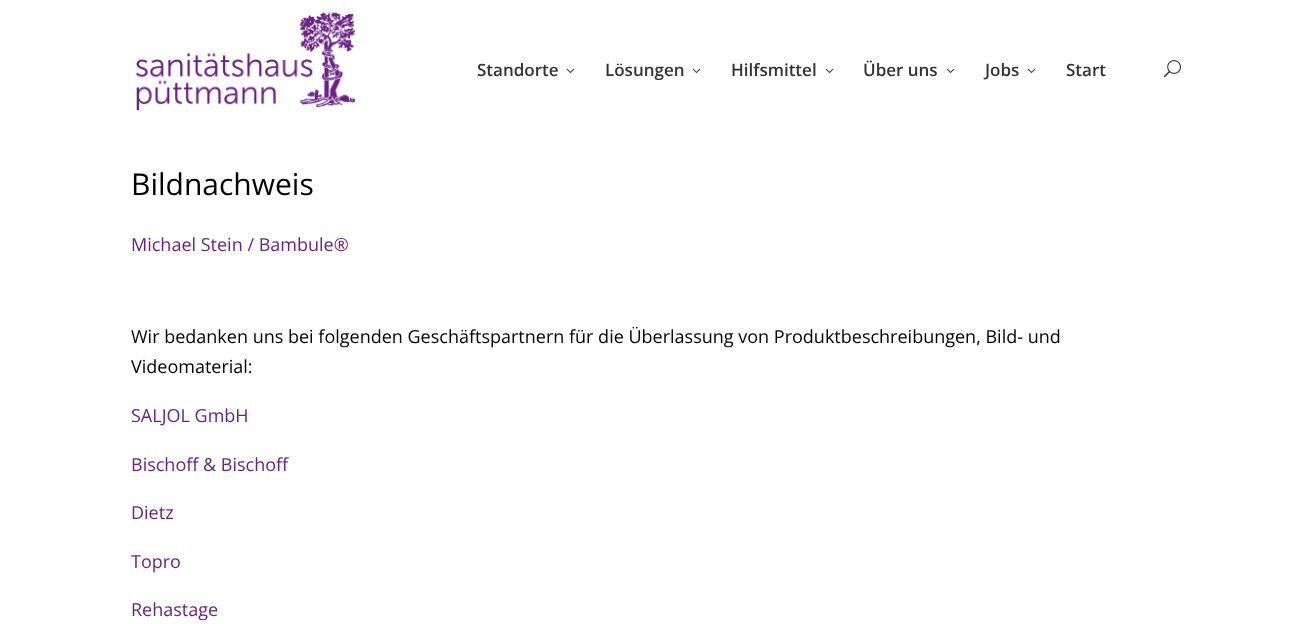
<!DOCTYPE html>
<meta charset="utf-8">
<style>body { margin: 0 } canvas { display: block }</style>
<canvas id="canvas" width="1313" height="624"></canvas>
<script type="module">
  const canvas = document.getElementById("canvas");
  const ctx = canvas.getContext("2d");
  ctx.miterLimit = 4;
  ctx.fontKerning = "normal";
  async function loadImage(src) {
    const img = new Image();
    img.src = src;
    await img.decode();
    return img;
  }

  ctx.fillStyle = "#ffffff";
  ctx.fillRect(0, 0, 1313, 624);
  ctx.drawImage(await loadImage("img1.png"), 136, 12, 219, 98);
  ctx.font = "600 17px Open Sans";
  ctx.fillStyle = "#333333";
  ctx.fillText("Standorte", 477, 76);
  ctx.drawImage(await loadImage("img2.png"), 566, 68, 9, 5);
  ctx.fillText("Lösungen", 605, 76);
  ctx.drawImage(await loadImage("img2.png"), 692, 68, 9, 5);
  ctx.fillText("Hilfsmittel", 731, 76);
  ctx.drawImage(await loadImage("img2.png"), 825, 68, 9, 5);
  ctx.fillText("Über uns", 863, 76);
  ctx.drawImage(await loadImage("img2.png"), 946, 68, 9, 5);
  ctx.fillText("Jobs", 985, 76);
  ctx.drawImage(await loadImage("img2.png"), 1027, 68, 9, 5);
  ctx.fillText("Start", 1066, 76);
  ctx.drawImage(await loadImage("img3.png"), 1164, 60, 17, 18);
  ctx.font = "30px Open Sans";
  ctx.fillStyle = "#000000";
  ctx.fillText("Bildnachweis", 131, 195);
  ctx.font = "18px Open Sans";
  ctx.fillStyle = "#6a2383";
  ctx.fillText("Michael Stein / Bambule®", 131, 251);
  ctx.fillStyle = "#000000";
  ctx.fillText("Wir bedanken uns bei folgenden Geschäftspartnern für die Überlassung von Produktbeschreibungen, Bild- und", 131, 343);
  ctx.fillText("Videomaterial:", 131, 373);
  ctx.fillStyle = "#6a2383";
  ctx.fillText("SALJOL GmbH", 131, 422);
  ctx.fillText("Bischoff & Bischoff", 131, 471);
  ctx.fillText("Dietz", 131, 519);
  ctx.fillText("Topro", 131, 568);
  ctx.fillText("Rehastage", 131, 616);
</script>
